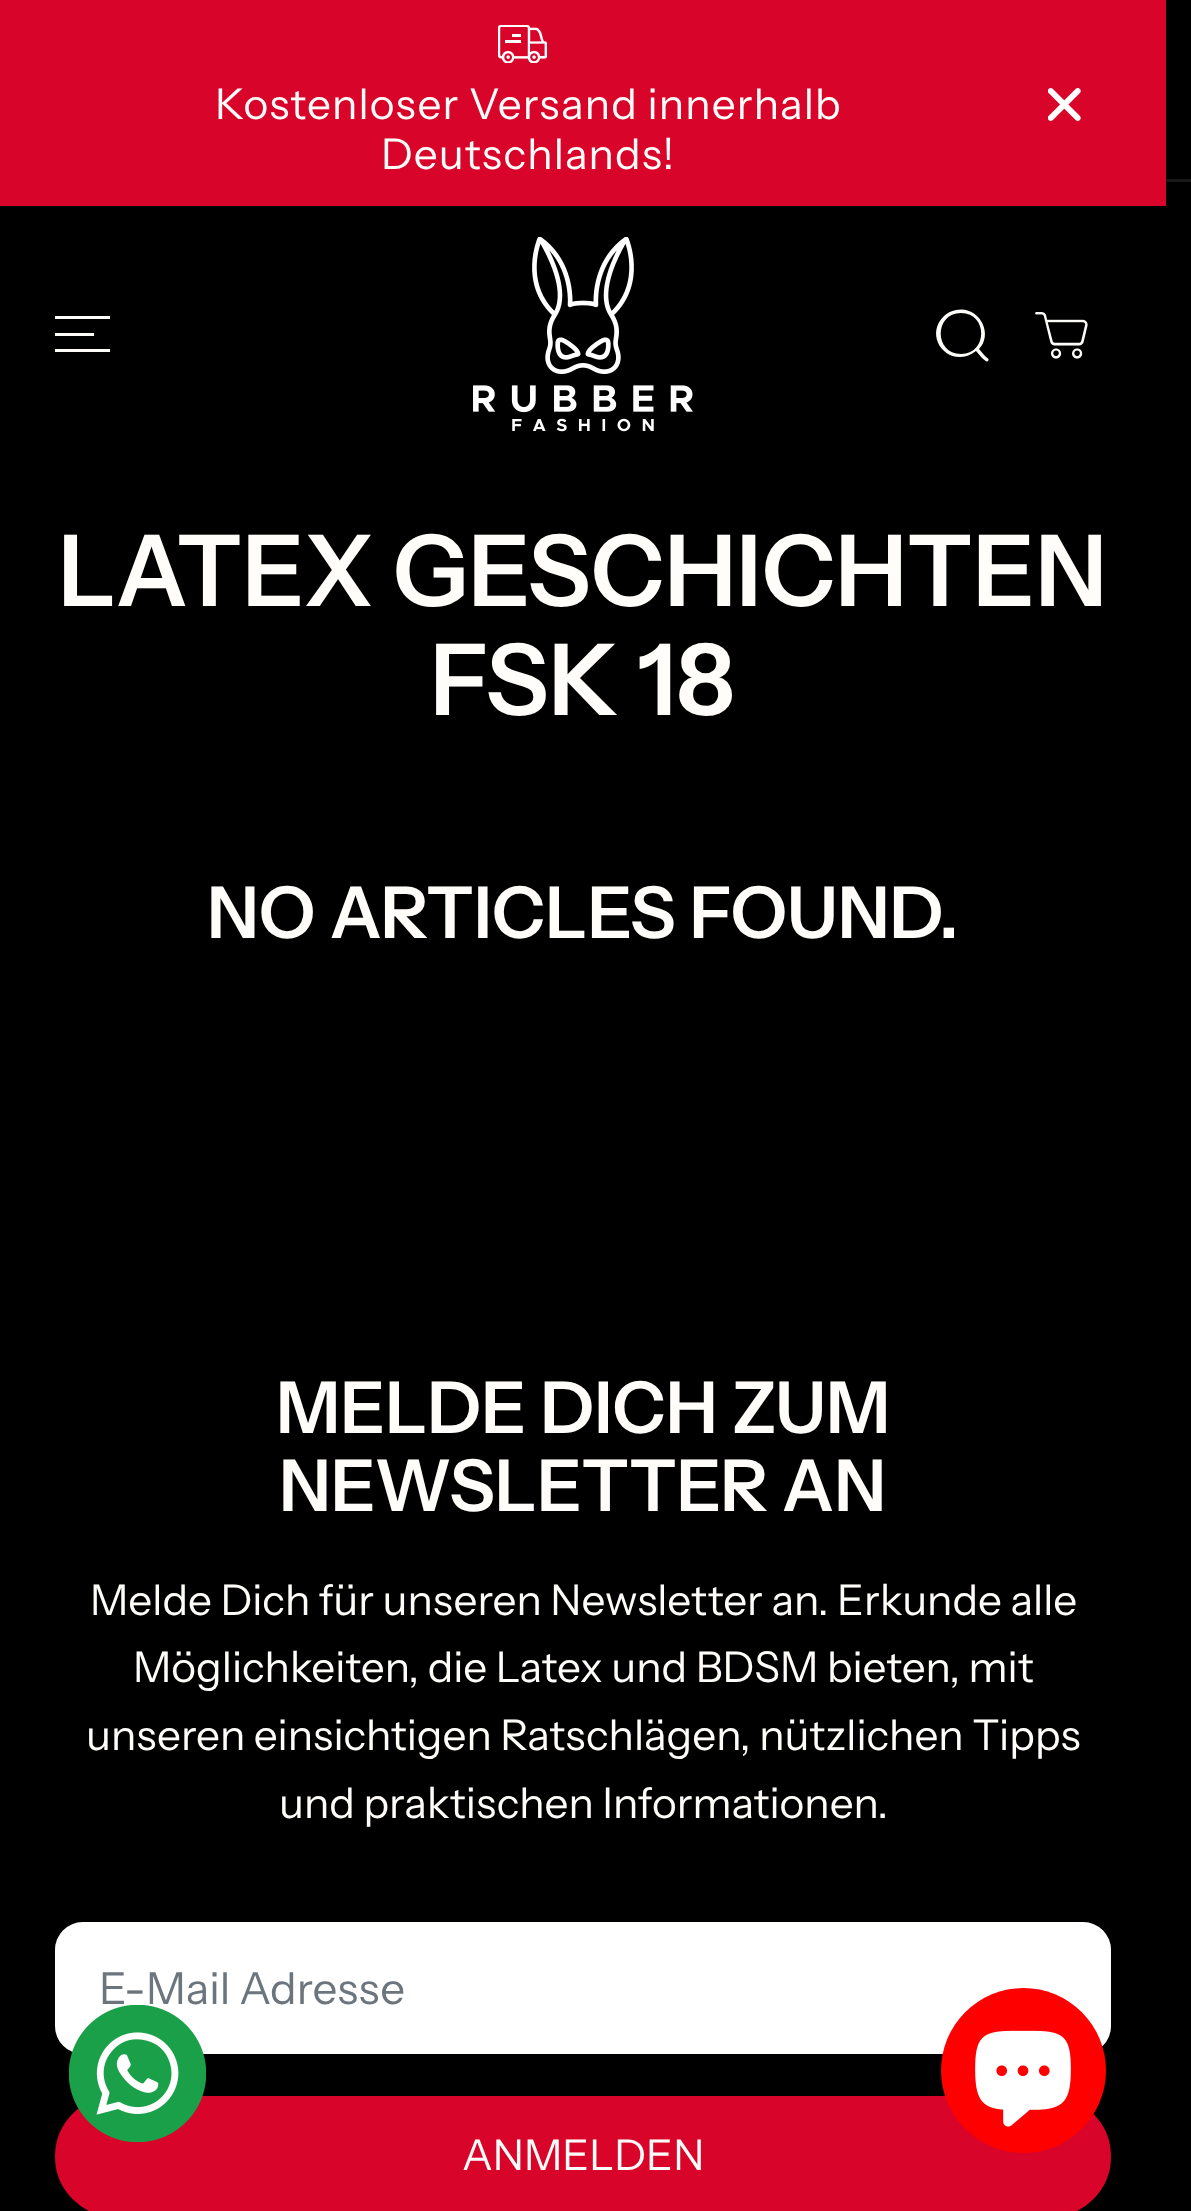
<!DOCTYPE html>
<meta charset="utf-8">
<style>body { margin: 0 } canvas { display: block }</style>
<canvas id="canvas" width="1191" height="2211"></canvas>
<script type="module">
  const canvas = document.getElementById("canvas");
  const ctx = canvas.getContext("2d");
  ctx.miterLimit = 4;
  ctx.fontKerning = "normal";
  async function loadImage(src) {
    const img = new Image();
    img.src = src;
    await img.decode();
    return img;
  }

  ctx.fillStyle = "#000000";
  ctx.fillRect(0, 0, 1191, 2211);
  ctx.fillStyle = "#d90429";
  ctx.fillRect(0, 0, 1166, 206);
  ctx.drawImage(await loadImage("img1.png"), 498, 25, 49, 38);
  ctx.letterSpacing = "1.1px";
  ctx.font = "42.35px Instrument Sans";
  ctx.fillStyle = "#fffdfa";
  ctx.fillText("Kostenloser Versand innerhalb", 215, 119);
  ctx.fillText("Deutschlands!", 381, 169);
  ctx.drawImage(await loadImage("img2.png"), 1048, 88, 33, 33);
  ctx.fillStyle = "#1a1919";
  ctx.fillRect(1166, 179, 25, 3);
  ctx.fillStyle = "#fffdfa";
  ctx.fillRect(55, 333, 39, 3);
  ctx.fillRect(55, 316, 55, 3);
  ctx.fillRect(55, 349, 55, 3);
  ctx.drawImage(await loadImage("img3.png"), 473, 237, 220, 195);
  ctx.beginPath();
  ctx.moveTo(979, 349);
  ctx.bezierCurveTo(994, 334, 979, 305, 956, 310);
  ctx.bezierCurveTo(951, 311, 947, 313, 944, 316);
  ctx.bezierCurveTo(922, 337, 950, 371, 976, 351);
  ctx.lineTo(982, 358);
  ctx.bezierCurveTo(984, 359, 986, 363, 988, 361);
  ctx.bezierCurveTo(990, 359, 987, 358, 985, 356);
  ctx.closePath();
  ctx.moveTo(961, 354);
  ctx.bezierCurveTo(934, 354, 934, 313, 961, 313);
  ctx.bezierCurveTo(988, 313, 988, 354, 961, 354);
  ctx.closePath();
  ctx.fill();
  ctx.drawImage(await loadImage("img4.png"), 1035, 312, 53, 47);
  ctx.letterSpacing = "0px";
  ctx.font = "600 99px Instrument Sans";
  ctx.fillText("LATEX GESCHICHTEN", 58, 606);
  ctx.fillText("FSK 18", 430, 715);
  ctx.font = "600 71.5px Instrument Sans";
  ctx.fillText("NO ARTICLES FOUND.", 207, 938);
  ctx.fillText("MELDE DICH ZUM", 276, 1433);
  ctx.fillText("NEWSLETTER AN", 279, 1511);
  ctx.font = "42.35px Instrument Sans";
  ctx.fillText("Melde Dich für unseren Newsletter an. Erkunde alle", 90, 1615);
  ctx.fillText("Möglichkeiten, die Latex und BDSM bieten, mit", 133, 1682);
  ctx.fillText("unseren einsichtigen Ratschlägen, nützlichen Tipps", 86, 1750);
  ctx.fillText("und praktischen Informationen.", 279, 1818);
  ctx.fillStyle = "#ffffff";
  ctx.beginPath();
  ctx.roundRect(55, 1922, 1056, 132, 28);
  ctx.fill();
  ctx.beginPath();
  ctx.roundRect(56.5, 1923.5, 1053, 129, 26.5);
  ctx.strokeStyle = "rgba(255, 253, 250, 0.3)";
  ctx.lineWidth = 3;
  ctx.stroke();
  ctx.font = "44px Instrument Sans";
  ctx.fillStyle = "#6c757d";
  ctx.fillText("E-Mail Adresse", 99, 2004);
  ctx.fillStyle = "#d90429";
  ctx.beginPath();
  ctx.roundRect(56.5, 2097.5, 1053, 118, 59);
  ctx.fill();
  ctx.strokeStyle = "#d90429";
  ctx.stroke();
  ctx.font = "42.35px Instrument Sans";
  ctx.fillStyle = "#fffdfa";
  ctx.fillText("ANMELDEN", 462, 2170);
  ctx.drawImage(await loadImage("img5.png"), 69, 2005, 137, 137);
  ctx.fillStyle = "#ff0000";
  ctx.beginPath();
  ctx.arc(1023.5, 2070.5, 82.5, 0, Math.PI * 2);
  ctx.fill();
  ctx.drawImage(await loadImage("img6.png"), 975, 2030, 96, 97);
</script>
